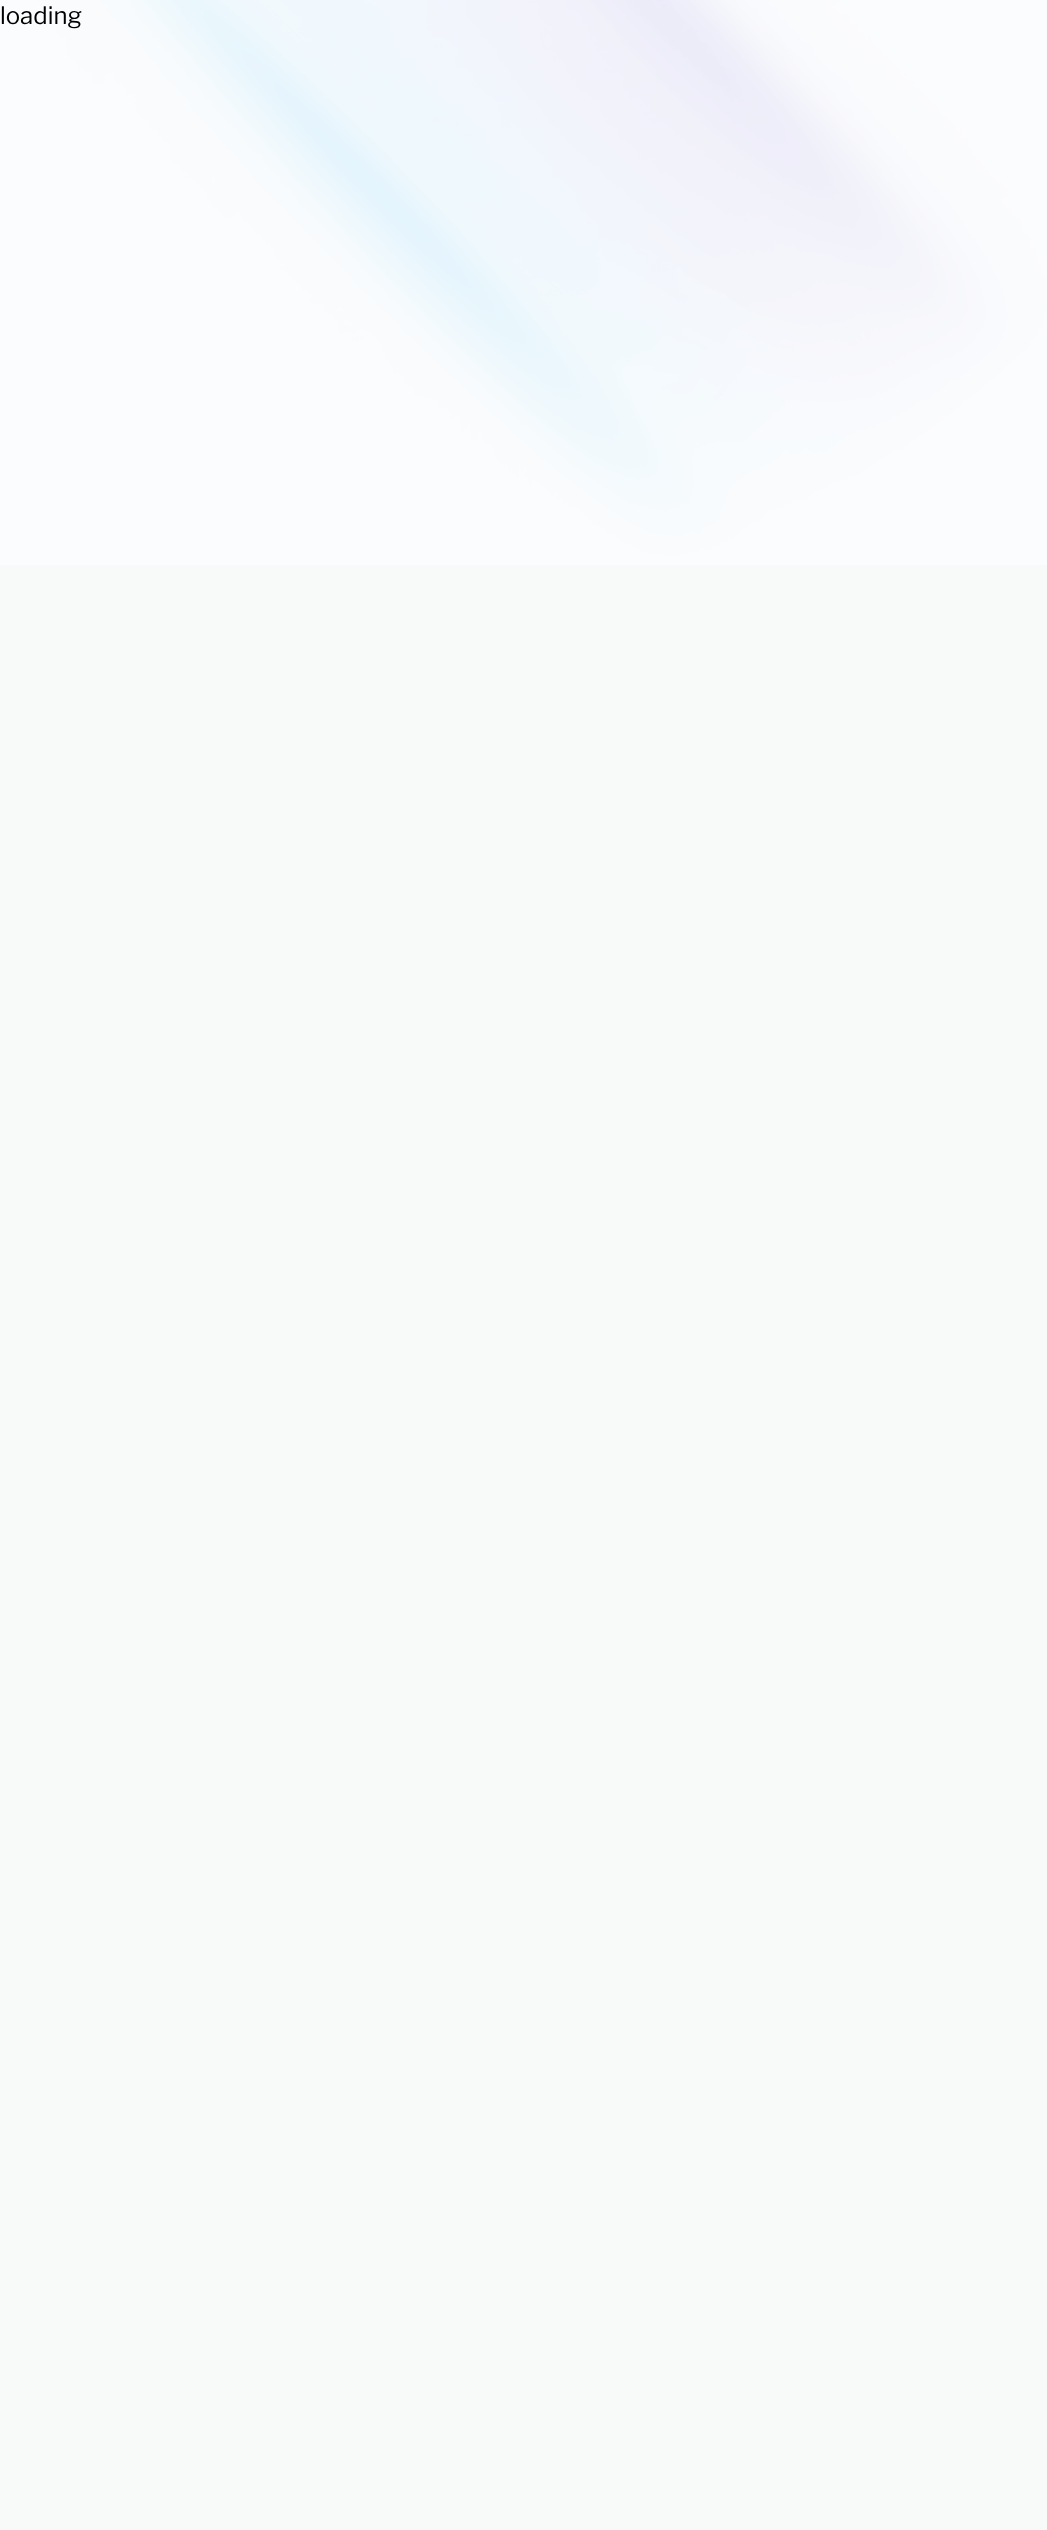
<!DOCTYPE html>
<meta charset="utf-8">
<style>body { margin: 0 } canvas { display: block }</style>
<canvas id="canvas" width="1047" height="2530"></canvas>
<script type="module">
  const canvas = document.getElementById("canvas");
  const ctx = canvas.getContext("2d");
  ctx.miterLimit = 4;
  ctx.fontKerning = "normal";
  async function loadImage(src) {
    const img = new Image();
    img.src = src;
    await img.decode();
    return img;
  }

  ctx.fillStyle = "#f7faf9";
  ctx.fillRect(0, 0, 1047, 2530);
  ctx.drawImage(await loadImage("img1.png"), 0, 0, 1047, 565);
  ctx.font = "24px Libre Franklin";
  ctx.fillStyle = "#000000";
  ctx.fillText("loading", 0, 24);
</script>
